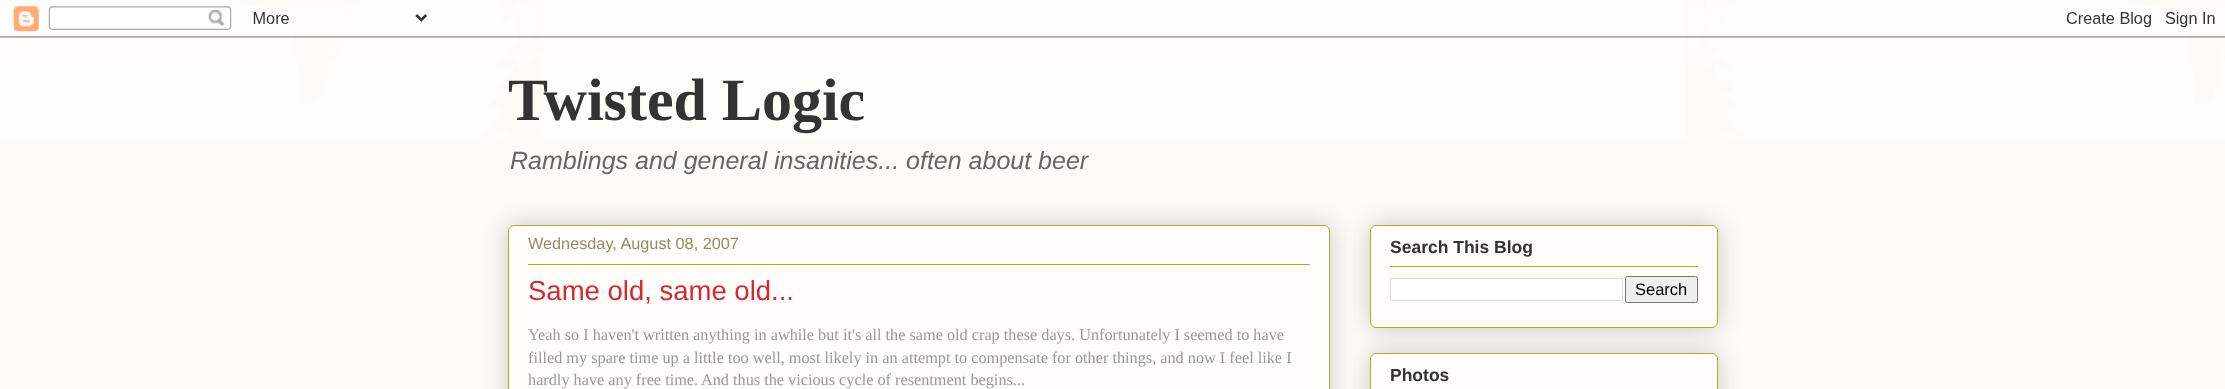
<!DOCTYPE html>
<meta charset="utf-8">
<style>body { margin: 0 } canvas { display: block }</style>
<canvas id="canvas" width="2225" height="389"></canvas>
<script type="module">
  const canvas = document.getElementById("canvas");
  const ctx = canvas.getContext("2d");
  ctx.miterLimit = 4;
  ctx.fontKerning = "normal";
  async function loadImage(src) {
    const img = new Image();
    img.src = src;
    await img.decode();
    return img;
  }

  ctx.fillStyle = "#fcfbf5";
  ctx.fillRect(0, 0, 2225, 389);
  ctx.drawImage(await loadImage("img1.png"), 0, 0, 2225, 139);
  ctx.drawImage(await loadImage("img2.png"), 0, 6, 2225, 32);
  ctx.font = "bold 60px Liberation Serif";
  ctx.fillStyle = "#333333";
  ctx.fillText("Twisted Logic", 508, 120);
  ctx.font = "italic 25px Liberation Sans";
  ctx.fillStyle = "#666666";
  ctx.fillText("Ramblings and general insanities... often about beer", 510, 169);
  ctx.fillStyle = "rgba(0, 0, 0, 0.2)";
  ctx.filter = "blur(12.5px)";
  ctx.beginPath();
  ctx.roundRect(508, 225, 822, 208, 6);
  ctx.fill();
  ctx.filter = "none";
  ctx.fillStyle = "#fefdfa";
  ctx.beginPath();
  ctx.roundRect(508.5, 225.5, 821, 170, 5.5);
  ctx.fill();
  ctx.strokeStyle = "#aab122";
  ctx.stroke();
  ctx.font = "16.25px Liberation Sans";
  ctx.fillStyle = "#908c6a";
  ctx.fillText("Wednesday, August 08, 2007", 528, 249);
  ctx.fillStyle = "#aab122";
  ctx.fillRect(528, 264, 782, 1);
  ctx.font = "27.5px Liberation Sans";
  ctx.fillStyle = "#d52932";
  ctx.fillText("Same old, same old...", 528, 300);
  ctx.font = "16.25px Liberation Serif";
  ctx.fillStyle = "#999999";
  ctx.fillText("Yeah so I haven't written anything in awhile but it's all the same old crap these days. Unfortunately I seemed to have", 528, 340);
  ctx.fillText("filled my spare time up a little too well, most likely in an attempt to compensate for other things, and now I feel like I", 528, 363);
  ctx.fillText("hardly have any free time.", 528, 385);
  ctx.fillText("And thus the vicious cycle of resentment begins...", 701, 385);
  ctx.fillStyle = "rgba(0, 0, 0, 0.2)";
  ctx.filter = "blur(12.5px)";
  ctx.beginPath();
  ctx.roundRect(1370, 225, 348, 103, 6);
  ctx.fill();
  ctx.filter = "none";
  ctx.fillStyle = "#fefdfa";
  ctx.beginPath();
  ctx.roundRect(1370.5, 225.5, 347, 102, 5.5);
  ctx.fill();
  ctx.stroke();
  ctx.font = "bold 17.5px Liberation Sans";
  ctx.fillStyle = "#333333";
  ctx.fillText("Search This Blog", 1390, 253);
  ctx.fillStyle = "#aab122";
  ctx.fillRect(1390, 266, 308, 1);
  ctx.fillStyle = "#ffffff";
  ctx.beginPath();
  ctx.rect(1390.5, 278.5, 232, 22);
  ctx.fill();
  ctx.strokeStyle = "#dddddd";
  ctx.stroke();
  ctx.fillStyle = "#efefef";
  ctx.beginPath();
  ctx.roundRect(1625.5, 276.5, 72, 26, 2);
  ctx.fill();
  ctx.strokeStyle = "#767676";
  ctx.stroke();
  ctx.font = "16.5px Liberation Sans";
  ctx.fillStyle = "#000000";
  ctx.fillText("Search", 1635, 295);
  ctx.fillStyle = "rgba(0, 0, 0, 0.2)";
  ctx.filter = "blur(12.5px)";
  ctx.beginPath();
  ctx.roundRect(1370, 353, 348, 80, 6);
  ctx.fill();
  ctx.filter = "none";
  ctx.fillStyle = "#fefdfa";
  ctx.beginPath();
  ctx.roundRect(1370.5, 353.5, 347, 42, 5.5);
  ctx.fill();
  ctx.strokeStyle = "#aab122";
  ctx.stroke();
  ctx.font = "bold 17.5px Liberation Sans";
  ctx.fillStyle = "#333333";
  ctx.fillText("Photos", 1390, 381);
</script>
